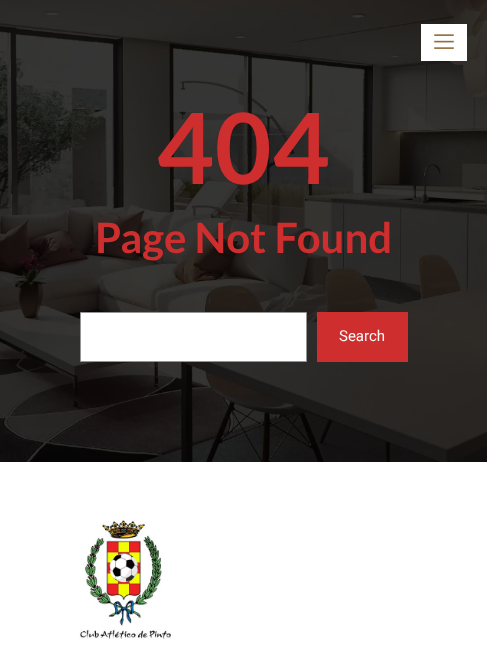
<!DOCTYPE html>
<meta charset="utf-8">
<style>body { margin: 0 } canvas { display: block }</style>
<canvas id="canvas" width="487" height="660"></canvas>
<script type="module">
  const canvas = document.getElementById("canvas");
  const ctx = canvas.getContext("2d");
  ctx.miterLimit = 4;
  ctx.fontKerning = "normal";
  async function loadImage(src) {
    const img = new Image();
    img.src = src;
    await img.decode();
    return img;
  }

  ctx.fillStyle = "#ffffff";
  ctx.fillRect(0, 0, 487, 660);
  ctx.drawImage(await loadImage("img2.png"), 0, 0, 487, 462);
  ctx.fillRect(421, 24, 46, 37);
  ctx.drawImage(await loadImage("img1.png"), 434, 34, 20, 15);
  ctx.letterSpacing = "1px";
  ctx.font = "bold 98px Lato";
  ctx.fillStyle = "#cf2e2e";
  ctx.fillText("404", 157, 184);
  ctx.letterSpacing = "0px";
  ctx.font = "bold 42px Lato";
  ctx.fillText("Page Not Found", 95, 253);
  ctx.fillStyle = "#ffffff";
  ctx.beginPath();
  ctx.rect(80.5, 312.5, 226, 49);
  ctx.fill();
  ctx.strokeStyle = "#949494";
  ctx.stroke();
  ctx.fillStyle = "#cf2e2e";
  ctx.fillRect(317, 312, 91, 50);
  ctx.font = "15px Roboto";
  ctx.fillStyle = "#f8f8f8";
  ctx.fillText("Search", 339, 341);
  ctx.drawImage(await loadImage("img3.png"), 79, 519, 92, 120);
</script>
